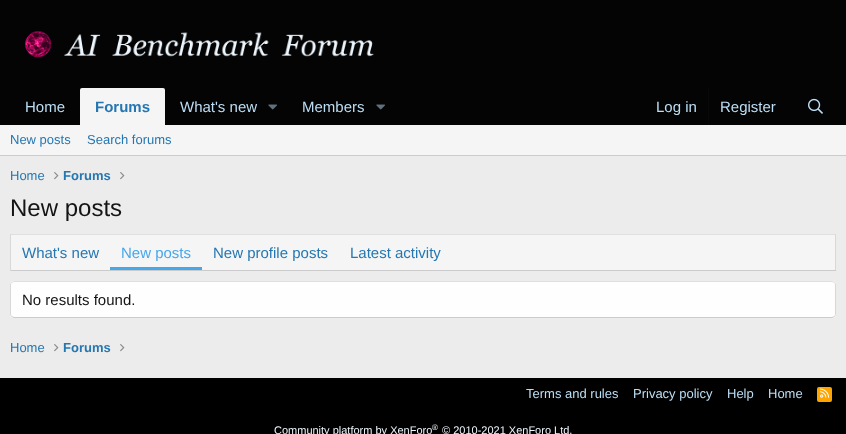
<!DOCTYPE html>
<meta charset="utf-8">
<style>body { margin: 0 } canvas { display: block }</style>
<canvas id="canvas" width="846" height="434"></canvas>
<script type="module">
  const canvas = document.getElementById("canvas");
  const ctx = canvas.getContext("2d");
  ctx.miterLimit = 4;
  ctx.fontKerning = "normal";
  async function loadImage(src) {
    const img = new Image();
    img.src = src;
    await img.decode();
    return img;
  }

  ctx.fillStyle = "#ececec";
  ctx.fillRect(0, 0, 846, 434);
  ctx.fillStyle = "#040404";
  ctx.fillRect(0, 0, 846, 125);
  ctx.drawImage(await loadImage("img1.png"), 25, 30, 349, 28);
  ctx.font = "15px Liberation Sans";
  ctx.fillStyle = "#bcdef5";
  ctx.fillText("Home", 25, 112);
  ctx.fillStyle = "#f5f5f5";
  ctx.beginPath();
  ctx.roundRect(80, 88, 85, 37, [2, 2, 0, 0]);
  ctx.fill();
  ctx.font = "bold 15px Liberation Sans";
  ctx.fillStyle = "#2577b1";
  ctx.fillText("Forums", 95, 112);
  ctx.font = "15px Liberation Sans";
  ctx.fillStyle = "#bcdef5";
  ctx.fillText("What's new", 180, 112);
  ctx.drawImage(await loadImage("img2.png"), 268, 104, 9, 6);
  ctx.fillText("Members", 302, 112);
  ctx.drawImage(await loadImage("img2.png"), 376, 104, 9, 6);
  ctx.fillText("Log in", 656, 112);
  ctx.fillStyle = "#080808";
  ctx.fillRect(708, 88, 1, 37);
  ctx.fillStyle = "#bcdef5";
  ctx.fillText("Register", 720, 112);
  ctx.drawImage(await loadImage("img3.png"), 808, 98, 15, 16);
  ctx.fillStyle = "#f5f5f5";
  ctx.fillRect(0, 125, 846, 30);
  ctx.fillStyle = "#cbcbcb";
  ctx.fillRect(0, 155, 846, 1);
  ctx.font = "13px Liberation Sans";
  ctx.fillStyle = "#2577b1";
  ctx.fillText("New posts", 10, 144);
  ctx.fillText("Search forums", 87, 144);
  ctx.fillText("Home", 10, 180);
  ctx.drawImage(await loadImage("img4.png"), 54, 172, 5, 8);
  ctx.font = "bold 13px Liberation Sans";
  ctx.fillText("Forums", 63, 180);
  ctx.drawImage(await loadImage("img4.png"), 120, 172, 5, 8);
  ctx.font = "24px Liberation Sans";
  ctx.fillStyle = "#141414";
  ctx.fillText("New posts", 10, 216);
  ctx.fillStyle = "#f5f5f5";
  ctx.fillRect(11, 235, 824, 35);
  ctx.fillStyle = "#dfdfdf";
  ctx.fillRect(10, 234, 826, 1);
  ctx.fillStyle = "#d8d8d8";
  ctx.fillRect(835, 234, 1, 37);
  ctx.fillStyle = "#cbcbcb";
  ctx.fillRect(10, 270, 826, 1);
  ctx.fillStyle = "#d8d8d8";
  ctx.fillRect(10, 234, 1, 37);
  ctx.font = "15px Liberation Sans";
  ctx.fillStyle = "#2577b1";
  ctx.fillText("What's new", 22, 258);
  ctx.fillStyle = "#47a7eb";
  ctx.fillRect(110, 267, 92, 3);
  ctx.fillText("New posts", 121, 258);
  ctx.fillStyle = "#2577b1";
  ctx.fillText("New profile posts", 213, 258);
  ctx.fillText("Latest activity", 350, 258);
  ctx.fillStyle = "#fefefe";
  ctx.beginPath();
  ctx.roundRect(10, 281, 826, 37, 4);
  ctx.fill();
  ctx.beginPath();
  ctx.moveTo(11.5, 282.5);
  ctx.lineTo(14, 281.5);
  ctx.lineTo(832, 281.5);
  ctx.lineTo(834.5, 282.5);
  ctx.strokeStyle = "#dfdfdf";
  ctx.stroke();
  ctx.beginPath();
  ctx.moveTo(834.5, 282.5);
  ctx.bezierCurveTo(835, 283, 835.5, 284, 835.5, 285);
  ctx.lineTo(835.5, 314);
  ctx.bezierCurveTo(835.5, 315, 835, 316, 834.5, 316.5);
  ctx.strokeStyle = "#d8d8d8";
  ctx.stroke();
  ctx.beginPath();
  ctx.moveTo(834.5, 316.5);
  ctx.lineTo(832, 317.5);
  ctx.lineTo(14, 317.5);
  ctx.lineTo(11.5, 316.5);
  ctx.strokeStyle = "#cbcbcb";
  ctx.stroke();
  ctx.beginPath();
  ctx.moveTo(11.5, 316.5);
  ctx.bezierCurveTo(11, 316, 10.5, 315, 10.5, 314);
  ctx.lineTo(10.5, 285);
  ctx.bezierCurveTo(10.5, 284, 11, 283, 11.5, 282.5);
  ctx.strokeStyle = "#d8d8d8";
  ctx.stroke();
  ctx.fillStyle = "#141414";
  ctx.fillText("No results found.", 22, 305);
  ctx.font = "13px Liberation Sans";
  ctx.fillStyle = "#2577b1";
  ctx.fillText("Home", 10, 352);
  ctx.drawImage(await loadImage("img4.png"), 54, 344, 5, 8);
  ctx.font = "bold 13px Liberation Sans";
  ctx.fillText("Forums", 63, 352);
  ctx.drawImage(await loadImage("img4.png"), 120, 344, 5, 8);
  ctx.fillStyle = "#000000";
  ctx.fillRect(0, 378, 846, 56);
  ctx.font = "13px Liberation Sans";
  ctx.fillStyle = "#bcdef5";
  ctx.fillText("Terms and rules", 526, 398);
  ctx.fillText("Privacy policy", 633, 398);
  ctx.fillText("Help", 727, 398);
  ctx.fillText("Home", 768, 398);
  ctx.fillStyle = "#ffa500";
  ctx.beginPath();
  ctx.roundRect(817, 387, 15, 15, 2);
  ctx.fill();
  ctx.drawImage(await loadImage("img5.png"), 820, 388, 10, 10);
  ctx.font = "11px Liberation Sans";
  ctx.fillStyle = "#edf6fd";
  ctx.fillText("Community platform by XenForo", 274, 434);
  ctx.font = "8px Liberation Sans";
  ctx.fillText("®", 432, 430);
  ctx.font = "11px Liberation Sans";
  ctx.fillText("© 2010-2021 XenForo Ltd.", 442, 434);
</script>
